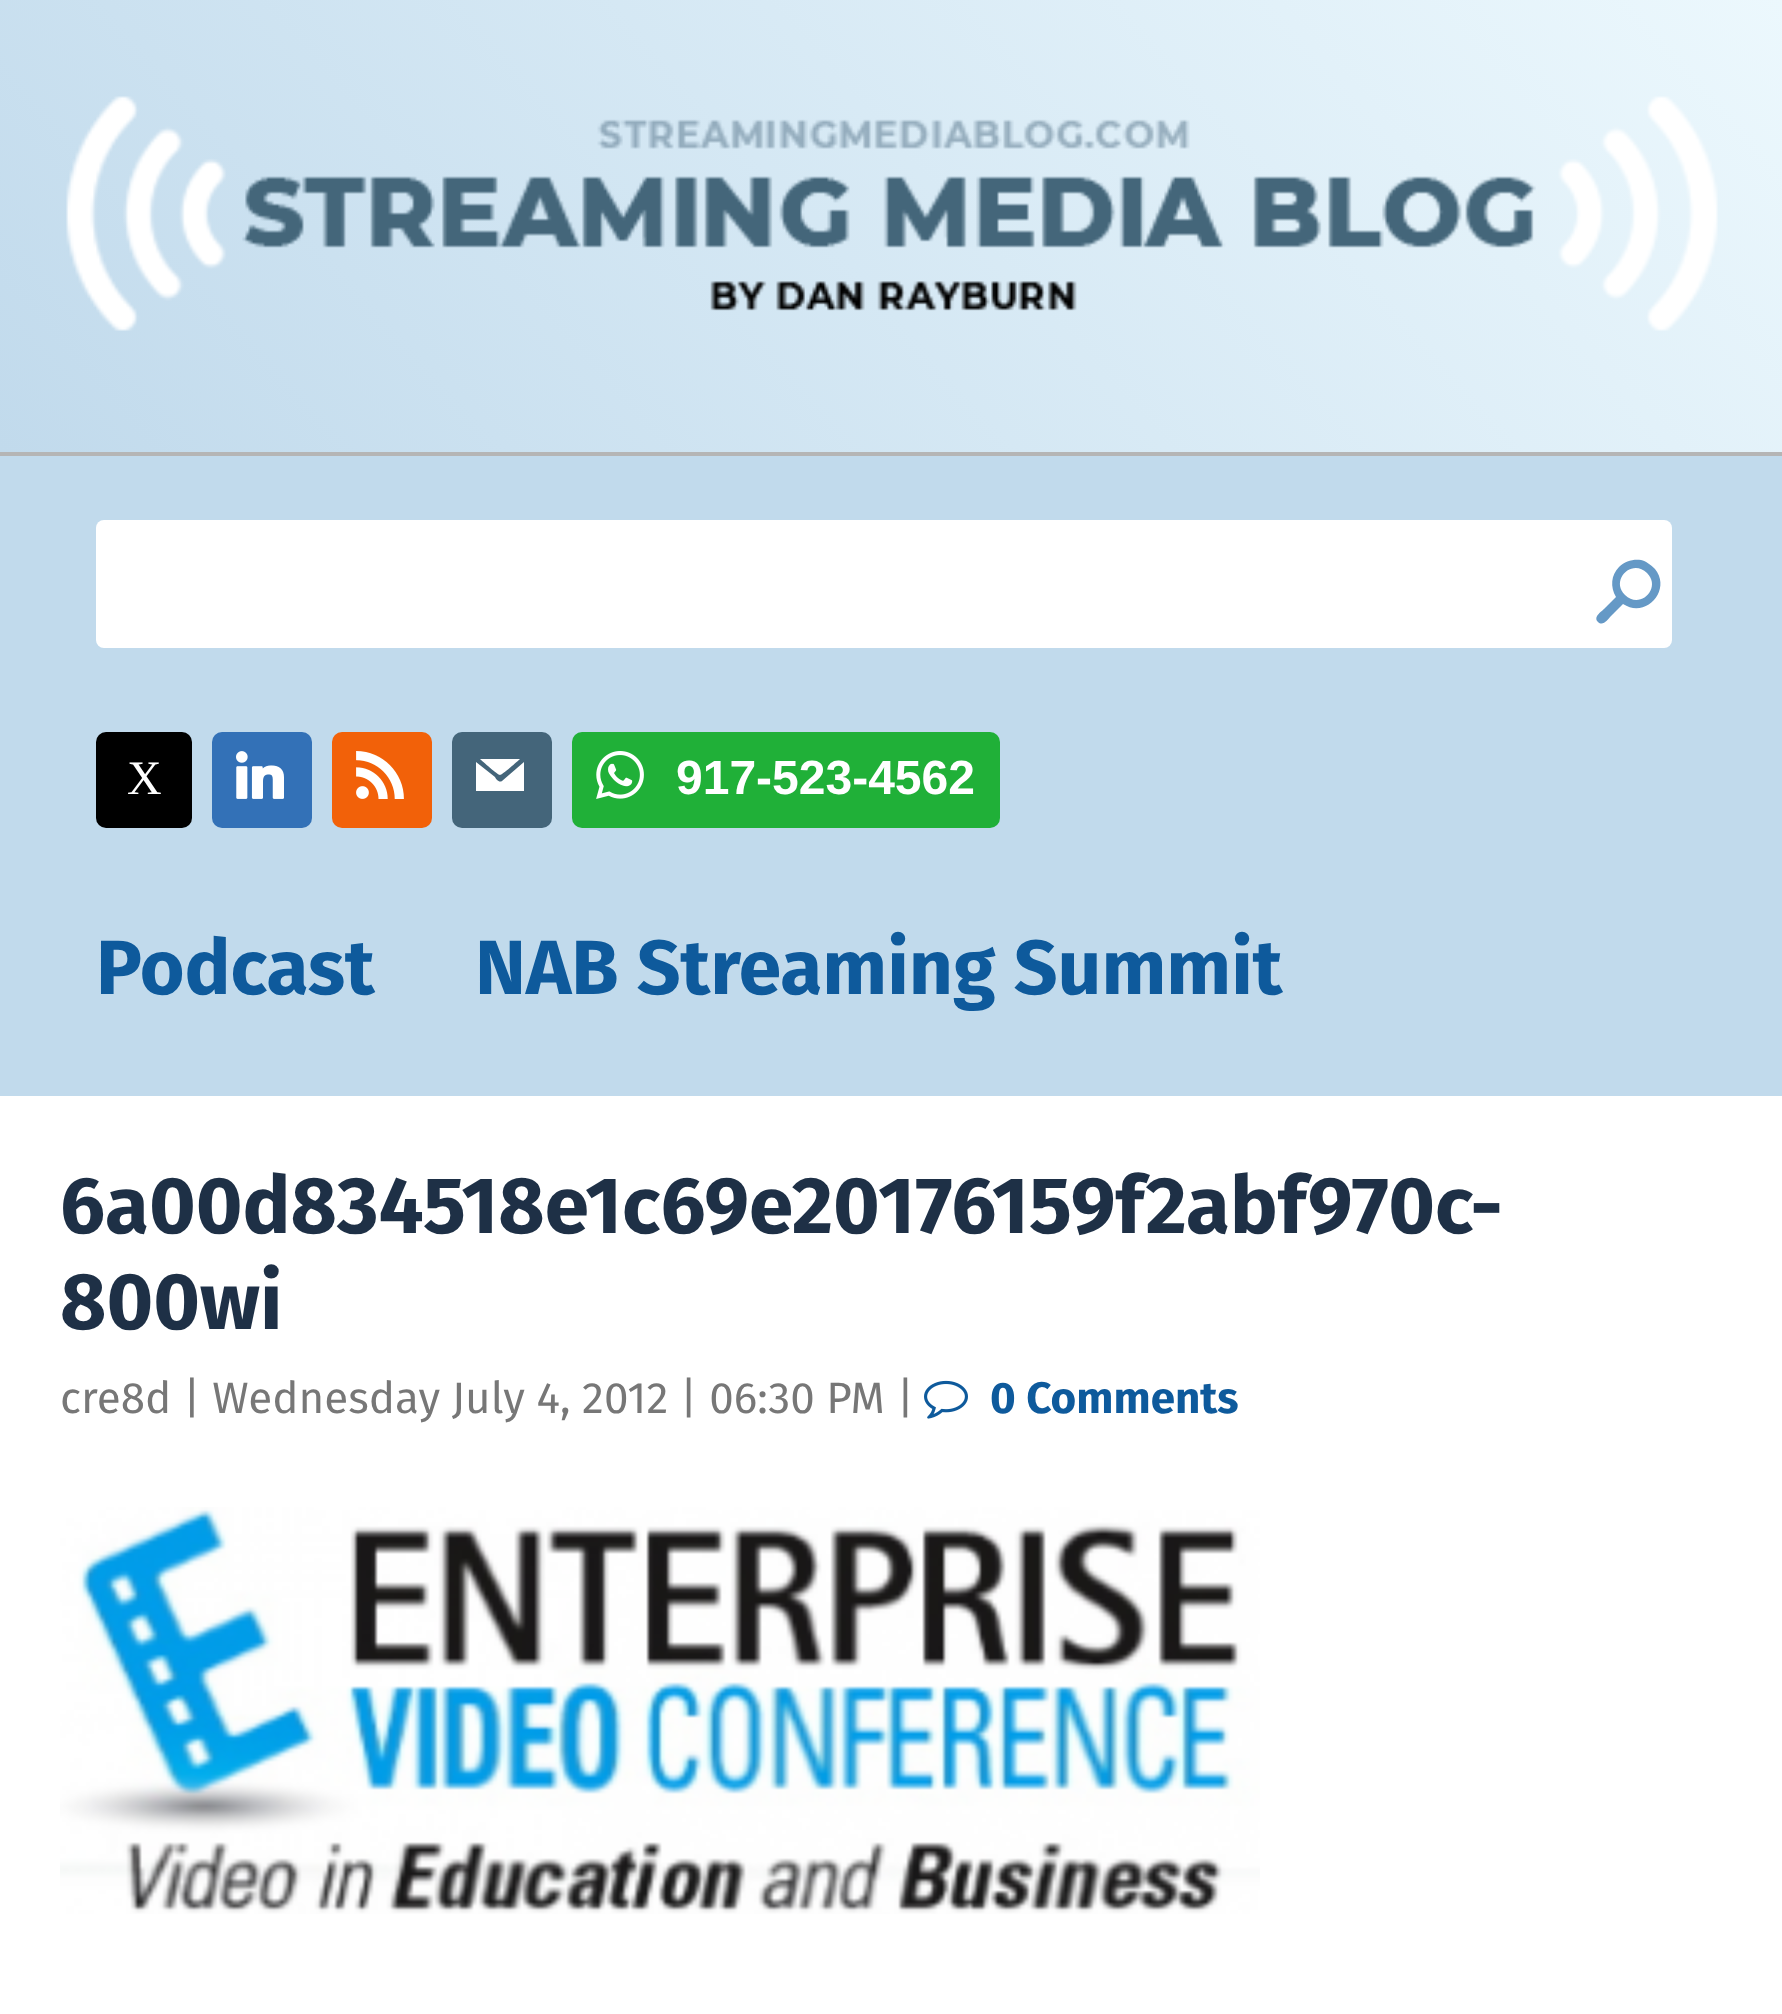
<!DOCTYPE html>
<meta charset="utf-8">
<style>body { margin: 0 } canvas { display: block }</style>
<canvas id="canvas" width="1782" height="2014"></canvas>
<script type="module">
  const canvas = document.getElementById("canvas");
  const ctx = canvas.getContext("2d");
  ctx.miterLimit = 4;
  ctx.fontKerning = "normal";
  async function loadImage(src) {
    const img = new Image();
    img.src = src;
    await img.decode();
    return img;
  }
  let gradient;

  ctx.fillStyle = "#c1daec";
  ctx.fillRect(0, 0, 1782, 2014);
  gradient = ctx.createLinearGradient(1497, -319, 287, 771);
  gradient.addColorStop(0, "#ecf8fd");
  gradient.addColorStop(1, "#c1daec");
  ctx.fillStyle = gradient;
  ctx.fillRect(0, 0, 1782, 452);
  ctx.fillStyle = "#b5b5b5";
  ctx.fillRect(0, 452, 1782, 4);
  ctx.drawImage(await loadImage("img1.png"), 66, 96, 1652, 235);
  ctx.fillStyle = "#ffffff";
  ctx.beginPath();
  ctx.roundRect(96, 520, 1576, 128, 8);
  ctx.fill();
  ctx.fillStyle = "#6599c6";
  ctx.beginPath();
  ctx.moveTo(1619, 567);
  ctx.bezierCurveTo(1625, 561, 1633, 559, 1641, 560);
  ctx.bezierCurveTo(1646, 561, 1651, 565, 1655, 569);
  ctx.bezierCurveTo(1672, 590, 1646, 619, 1623, 604);
  ctx.lineTo(1611, 616);
  ctx.bezierCurveTo(1608, 619, 1603, 627, 1598, 622);
  ctx.bezierCurveTo(1593, 617, 1601, 612, 1604, 609);
  ctx.lineTo(1616, 597);
  ctx.bezierCurveTo(1610, 587, 1611, 575, 1619, 567);
  ctx.closePath();
  ctx.moveTo(1625, 595);
  ctx.bezierCurveTo(1640, 610, 1662, 588, 1647, 573);
  ctx.bezierCurveTo(1632, 558, 1610, 580, 1625, 595);
  ctx.closePath();
  ctx.fill();
  ctx.fillStyle = "#000000";
  ctx.beginPath();
  ctx.roundRect(96, 732, 96, 96, 10);
  ctx.fill();
  ctx.font = "48px Liberation Serif";
  ctx.fillStyle = "#ffffff";
  ctx.fillText("X", 127, 794);
  ctx.fillStyle = "#3371b7";
  ctx.beginPath();
  ctx.roundRect(212, 732, 100, 96, 10);
  ctx.fill();
  ctx.drawImage(await loadImage("img2.png"), 236, 751, 48, 48);
  ctx.fillStyle = "#f26109";
  ctx.beginPath();
  ctx.roundRect(332, 732, 100, 96, 10);
  ctx.fill();
  ctx.drawImage(await loadImage("img3.png"), 356, 751, 48, 48);
  ctx.fillStyle = "#44657a";
  ctx.beginPath();
  ctx.roundRect(452, 732, 100, 96, 10);
  ctx.fill();
  ctx.fillStyle = "#ffffff";
  ctx.beginPath();
  ctx.moveTo(502, 781);
  ctx.bezierCurveTo(499, 783, 496, 779, 495, 777);
  ctx.lineTo(476, 762);
  ctx.lineTo(476, 791);
  ctx.lineTo(524, 791);
  ctx.lineTo(524, 762);
  ctx.closePath();
  ctx.moveTo(500, 775);
  ctx.bezierCurveTo(502, 775, 518, 761, 520, 759);
  ctx.lineTo(480, 759);
  ctx.bezierCurveTo(482, 761, 498, 775, 500, 775);
  ctx.closePath();
  ctx.fill();
  ctx.fillStyle = "#20b038";
  ctx.beginPath();
  ctx.roundRect(572, 732, 428, 96, 10);
  ctx.fill();
  ctx.drawImage(await loadImage("img4.png"), 596, 751, 48, 48);
  ctx.font = "bold 48px Liberation Sans";
  ctx.fillStyle = "#ffffff";
  ctx.fillText("917-523-4562", 676, 794);
  ctx.font = "bold 76.75px Fira Sans";
  ctx.fillStyle = "#0e5a9c";
  ctx.fillText("Podcast", 96, 994);
  ctx.fillText("NAB Streaming Summit", 475, 994);
  ctx.fillStyle = "#ffffff";
  ctx.fillRect(0, 1096, 1782, 918);
  ctx.font = "bold 80px Fira Sans";
  ctx.fillStyle = "#1e3046";
  ctx.fillText("6a00d834518e1c69e20176159f2abf970c-", 60, 1233);
  ctx.fillText("800wi", 60, 1329);
  ctx.font = "44px Fira Sans";
  ctx.fillStyle = "#777777";
  ctx.fillText("cre8d | Wednesday July 4, 2012 | 06:30 PM |", 60, 1413);
  ctx.drawImage(await loadImage("img5.png"), 924, 1380, 44, 39);
  ctx.font = "bold 44px Fira Sans";
  ctx.fillStyle = "#0e5a9c";
  ctx.fillText("0 Comments", 990, 1413);
  ctx.drawImage(await loadImage("img6.png"), 60, 1507, 1200, 407);
</script>
